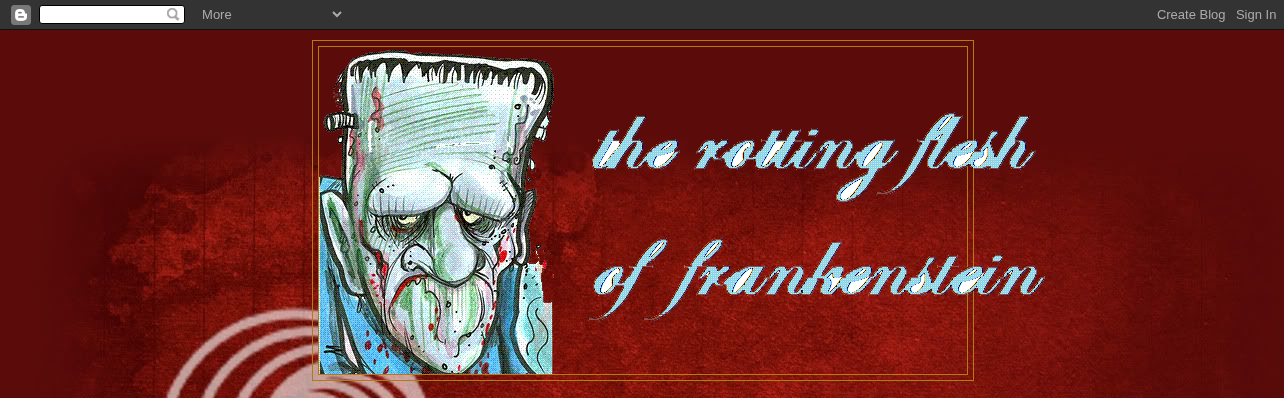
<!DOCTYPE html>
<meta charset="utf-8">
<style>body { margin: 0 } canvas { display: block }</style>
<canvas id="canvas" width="1284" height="398"></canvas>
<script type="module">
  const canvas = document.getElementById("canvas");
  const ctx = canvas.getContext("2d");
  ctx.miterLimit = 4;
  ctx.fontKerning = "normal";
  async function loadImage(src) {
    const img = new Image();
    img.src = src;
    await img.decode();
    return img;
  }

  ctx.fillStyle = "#ffffff";
  ctx.fillRect(0, 0, 1284, 398);
  ctx.drawImage(await loadImage("img1.png"), 0, 30, 1284, 368);
  ctx.drawImage(await loadImage("img2.png"), 0, 0, 1284, 30);
  ctx.strokeStyle = "#b47b10";
  ctx.strokeRect(312.5, 40.5, 661, 340);
  ctx.strokeRect(318.5, 46.5, 649, 328);
  ctx.drawImage(await loadImage("img3.png"), 319, 50, 726, 324);
</script>
